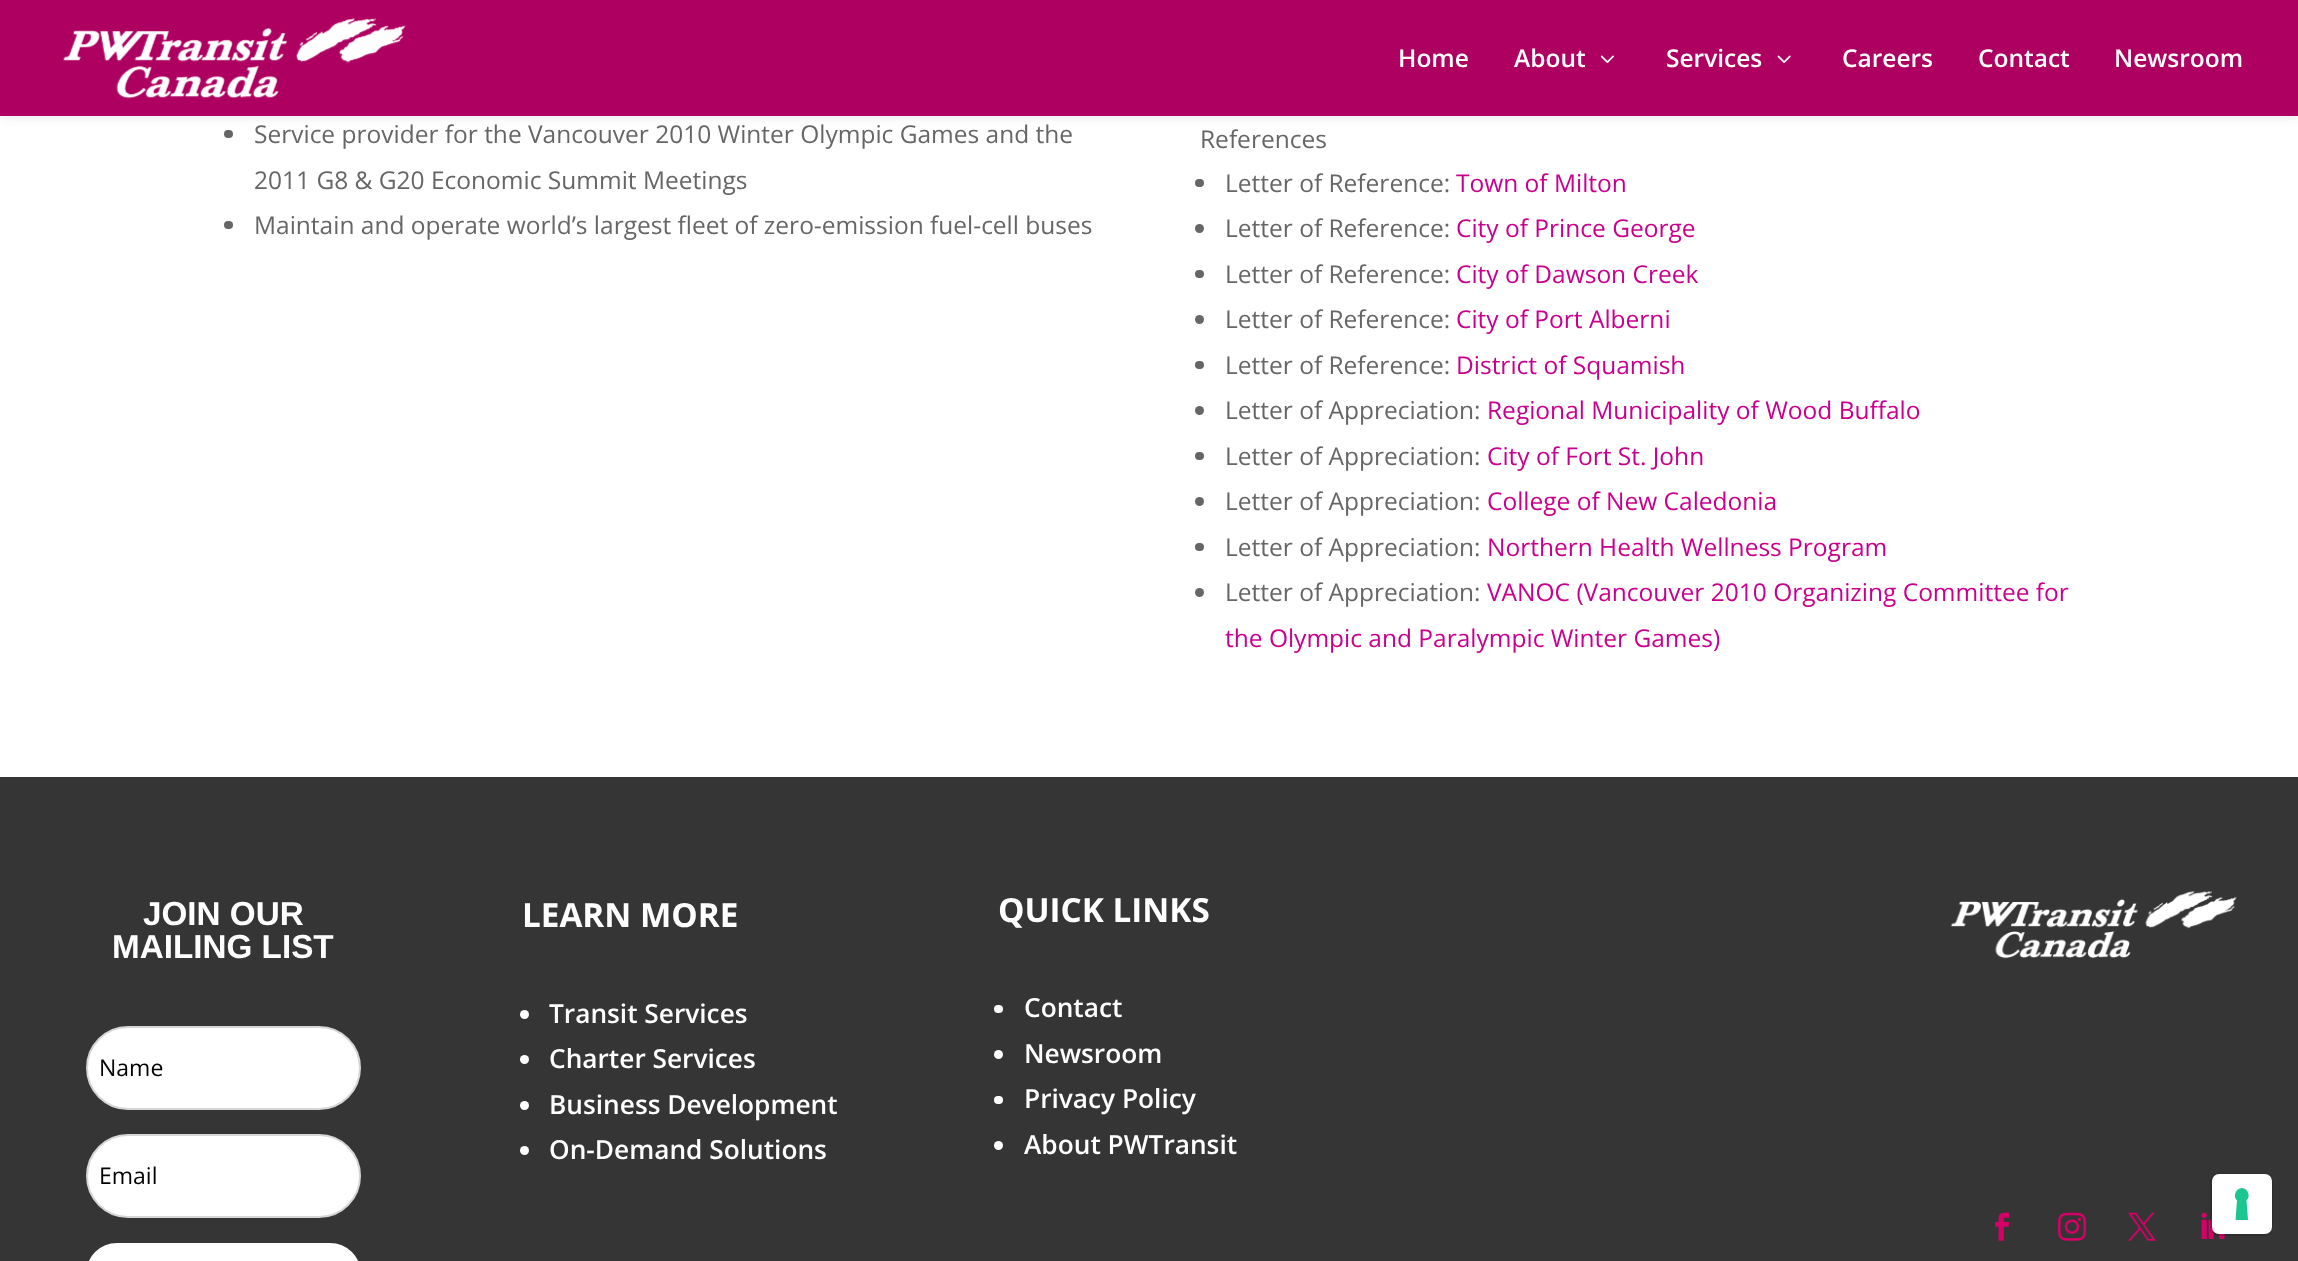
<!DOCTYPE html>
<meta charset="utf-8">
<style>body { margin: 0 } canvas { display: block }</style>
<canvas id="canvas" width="2298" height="1261"></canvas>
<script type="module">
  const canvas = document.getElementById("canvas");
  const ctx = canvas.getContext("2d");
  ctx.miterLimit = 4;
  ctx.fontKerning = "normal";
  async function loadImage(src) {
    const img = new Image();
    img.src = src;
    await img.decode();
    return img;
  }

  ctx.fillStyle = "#ffffff";
  ctx.fillRect(0, 0, 2298, 1261);
  ctx.fillStyle = "#666666";
  ctx.beginPath();
  ctx.roundRect(224, 130, 9, 8, 4);
  ctx.fill();
  ctx.fillStyle = "rgba(0, 0, 0, 0.1)";
  ctx.filter = "blur(6px)";
  ctx.beginPath();
  ctx.rect(0, 0, 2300, 116);
  ctx.fill();
  ctx.filter = "none";
  ctx.fillStyle = "#ae0060";
  ctx.fillRect(0, 0, 2298, 116);
  ctx.drawImage(await loadImage("img1.png"), 63, 18, 343, 81);
  ctx.font = "600 24.5px Open Sans";
  ctx.fillStyle = "#ffffff";
  ctx.fillText("Home", 1398, 67);
  ctx.fillText("About", 1514, 67);
  ctx.drawImage(await loadImage("img2.png"), 1600, 55, 14, 8);
  ctx.fillText("Services", 1666, 67);
  ctx.drawImage(await loadImage("img3.png"), 1777, 55, 14, 8);
  ctx.fillText("Careers", 1842, 67);
  ctx.fillText("Contact", 1978, 67);
  ctx.fillText("Newsroom", 2114, 67);
  ctx.font = "24.5px Open Sans";
  ctx.fillStyle = "#666666";
  ctx.fillText("Service provider for the Vancouver 2010 Winter Olympic Games and the", 254, 143);
  ctx.fillText("2011 G8 & G20 Economic Summit Meetings", 254, 189);
  ctx.beginPath();
  ctx.roundRect(224, 221, 9, 8, 4);
  ctx.fill();
  ctx.fillText("Maintain and operate world’s largest fleet of zero-emission fuel-cell buses", 254, 234);
  ctx.fillText("References", 1200, 148);
  ctx.beginPath();
  ctx.roundRect(1195, 179, 9, 8, 4);
  ctx.fill();
  ctx.fillText("Letter of Reference:", 1225, 192);
  ctx.fillStyle = "#c9008d";
  ctx.fillText("Town of Milton", 1456, 192);
  ctx.fillStyle = "#666666";
  ctx.beginPath();
  ctx.arc(1199.5, 228.5, 4.5, 0, Math.PI * 2);
  ctx.fill();
  ctx.fillText("Letter of Reference:", 1225, 237);
  ctx.fillStyle = "#c9008d";
  ctx.fillText("City of Prince George", 1456, 237);
  ctx.fillStyle = "#666666";
  ctx.beginPath();
  ctx.roundRect(1195, 270, 9, 8, 4);
  ctx.fill();
  ctx.fillText("Letter of Reference:", 1225, 283);
  ctx.fillStyle = "#c9008d";
  ctx.fillText("City of Dawson Creek", 1456, 283);
  ctx.fillStyle = "#666666";
  ctx.beginPath();
  ctx.arc(1199.5, 319.5, 4.5, 0, Math.PI * 2);
  ctx.fill();
  ctx.fillText("Letter of Reference:", 1225, 328);
  ctx.fillStyle = "#c9008d";
  ctx.fillText("City of Port Alberni", 1456, 328);
  ctx.fillStyle = "#666666";
  ctx.beginPath();
  ctx.roundRect(1195, 361, 9, 8, 4);
  ctx.fill();
  ctx.fillText("Letter of Reference:", 1225, 374);
  ctx.fillStyle = "#c9008d";
  ctx.fillText("District of Squamish", 1456, 374);
  ctx.fillStyle = "#666666";
  ctx.beginPath();
  ctx.arc(1199.5, 410.5, 4.5, 0, Math.PI * 2);
  ctx.fill();
  ctx.fillText("Letter of Appreciation:", 1225, 419);
  ctx.fillStyle = "#c9008d";
  ctx.fillText("Regional Municipality of Wood Buffalo", 1487, 419);
  ctx.fillStyle = "#666666";
  ctx.beginPath();
  ctx.roundRect(1195, 452, 9, 8, 4);
  ctx.fill();
  ctx.fillText("Letter of Appreciation:", 1225, 465);
  ctx.fillStyle = "#c9008d";
  ctx.fillText("City of Fort St. John", 1487, 465);
  ctx.fillStyle = "#666666";
  ctx.beginPath();
  ctx.arc(1199.5, 501.5, 4.5, 0, Math.PI * 2);
  ctx.fill();
  ctx.fillText("Letter of Appreciation:", 1225, 510);
  ctx.fillStyle = "#c9008d";
  ctx.fillText("College of New Caledonia", 1487, 510);
  ctx.fillStyle = "#666666";
  ctx.beginPath();
  ctx.roundRect(1195, 543, 9, 8, 4);
  ctx.fill();
  ctx.fillText("Letter of Appreciation:", 1225, 556);
  ctx.fillStyle = "#c9008d";
  ctx.fillText("Northern Health Wellness Program", 1487, 556);
  ctx.fillStyle = "#666666";
  ctx.beginPath();
  ctx.arc(1199.5, 592.5, 4.5, 0, Math.PI * 2);
  ctx.fill();
  ctx.fillText("Letter of Appreciation:", 1225, 601);
  ctx.fillStyle = "#c9008d";
  ctx.fillText("VANOC (Vancouver 2010 Organizing Committee for", 1487, 601);
  ctx.fillText("the Olympic and Paralympic Winter Games)", 1225, 647);
  ctx.fillStyle = "#353535";
  ctx.fillRect(0, 777, 2298, 484);
  ctx.font = "bold 33.25px Liberation Sans";
  ctx.fillStyle = "#ffffff";
  ctx.fillText("JOIN OUR", 143, 925);
  ctx.fillText("MAILING LIST", 112, 958);
  ctx.beginPath();
  ctx.roundRect(87, 1027, 273, 82, 41);
  ctx.fill();
  ctx.strokeStyle = "#d6d6d6";
  ctx.lineWidth = 2;
  ctx.stroke();
  ctx.font = "23px Open Sans";
  ctx.fillStyle = "#000000";
  ctx.fillText("Name", 99, 1076);
  ctx.fillStyle = "#ffffff";
  ctx.beginPath();
  ctx.roundRect(87, 1135, 273, 82, 41);
  ctx.fill();
  ctx.stroke();
  ctx.fillStyle = "#000000";
  ctx.fillText("Email", 99, 1184);
  ctx.fillStyle = "#ffffff";
  ctx.beginPath();
  ctx.roundRect(86, 1243, 275, 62, 43.5);
  ctx.fill();
  ctx.font = "bold 33.25px Open Sans";
  ctx.fillText("LEARN MORE", 522, 927);
  ctx.beginPath();
  ctx.arc(524.5, 1014.5, 4.5, 0, Math.PI * 2);
  ctx.fill();
  ctx.font = "600 26.25px Open Sans";
  ctx.fillText("Transit Services", 549, 1023);
  ctx.beginPath();
  ctx.arc(524.5, 1059.5, 4.5, 0, Math.PI * 2);
  ctx.fill();
  ctx.fillText("Charter Services", 549, 1068);
  ctx.beginPath();
  ctx.arc(524.5, 1105.5, 4.5, 0, Math.PI * 2);
  ctx.fill();
  ctx.fillText("Business Development", 549, 1114);
  ctx.beginPath();
  ctx.arc(524.5, 1150.5, 4.5, 0, Math.PI * 2);
  ctx.fill();
  ctx.fillText("On-Demand Solutions", 549, 1159);
  ctx.font = "bold 33.25px Open Sans";
  ctx.fillText("QUICK LINKS", 998, 922);
  ctx.beginPath();
  ctx.roundRect(994, 1005, 9, 8, 4);
  ctx.fill();
  ctx.font = "600 26.25px Open Sans";
  ctx.fillText("Contact", 1024, 1017);
  ctx.beginPath();
  ctx.arc(998.5, 1054.5, 4.5, 0, Math.PI * 2);
  ctx.fill();
  ctx.fillText("Newsroom", 1024, 1063);
  ctx.beginPath();
  ctx.roundRect(994, 1096, 9, 8, 4);
  ctx.fill();
  ctx.fillText("Privacy Policy", 1024, 1108);
  ctx.beginPath();
  ctx.arc(998.5, 1145.5, 4.5, 0, Math.PI * 2);
  ctx.fill();
  ctx.fillText("About PWTransit", 1024, 1154);
  ctx.drawImage(await loadImage("img4.png"), 1950, 891, 287, 68);
  ctx.drawImage(await loadImage("img5.png"), 1995, 1212, 15, 29);
  ctx.drawImage(await loadImage("img6.png"), 2058, 1212, 28, 29);
  ctx.drawImage(await loadImage("img7.png"), 2128, 1212, 28, 29);
  ctx.drawImage(await loadImage("img8.png"), 2201, 1212, 24, 27);
  ctx.beginPath();
  ctx.roundRect(2211, 1174, 61, 61, 8);
  ctx.strokeStyle = "rgba(0, 0, 0, 0.15)";
  ctx.stroke();
  ctx.beginPath();
  ctx.roundRect(2212, 1174, 60, 60, 7);
  ctx.fill();
  ctx.fillStyle = "#1cc691";
  ctx.beginPath();
  ctx.moveTo(2242, 1188);
  ctx.bezierCurveTo(2248, 1188.5, 2251, 1196.5, 2246.5, 1200.5);
  ctx.lineTo(2248, 1220);
  ctx.lineTo(2235.5, 1220);
  ctx.lineTo(2237, 1200.5);
  ctx.bezierCurveTo(2232.5, 1196.5, 2235.5, 1188.5, 2242, 1188);
  ctx.closePath();
  ctx.fill("evenodd");
</script>
